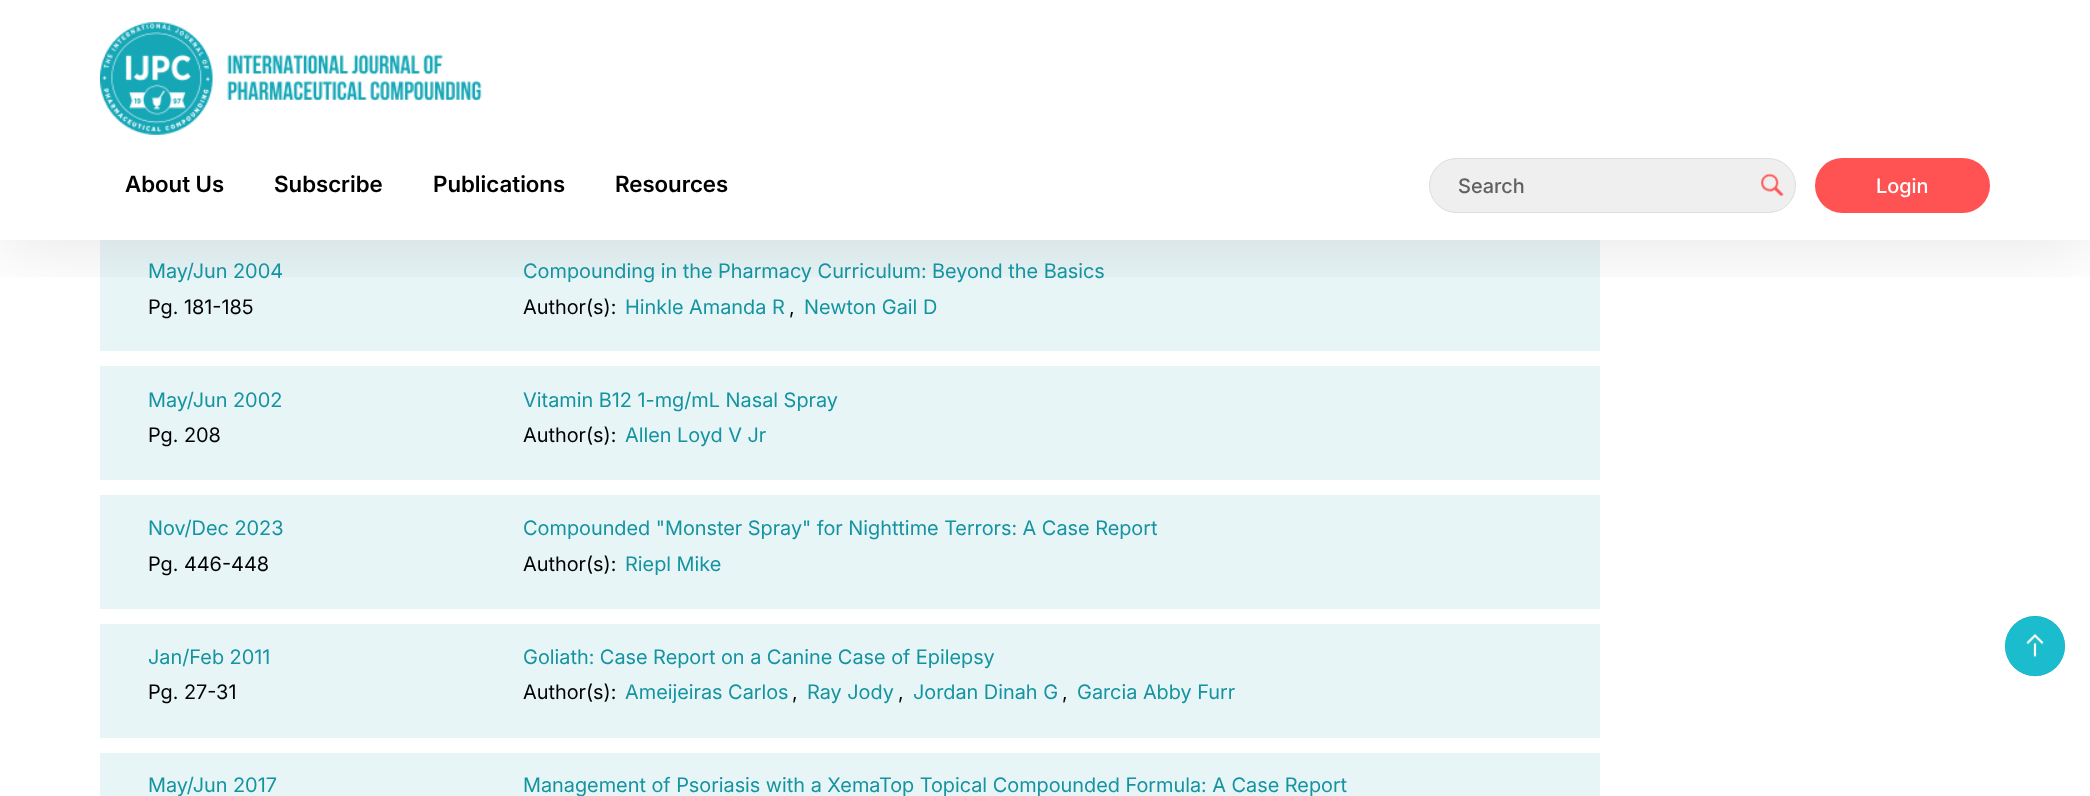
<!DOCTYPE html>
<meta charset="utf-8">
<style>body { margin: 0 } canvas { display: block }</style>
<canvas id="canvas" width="2090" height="796"></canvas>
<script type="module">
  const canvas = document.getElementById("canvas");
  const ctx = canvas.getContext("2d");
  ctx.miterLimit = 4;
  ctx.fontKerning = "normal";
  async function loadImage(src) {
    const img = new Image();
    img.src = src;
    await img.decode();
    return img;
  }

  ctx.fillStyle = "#ffffff";
  ctx.fillRect(0, 0, 2090, 796);
  ctx.fillStyle = "#e8f5f6";
  ctx.fillRect(100, 240, 1500, 111);
  ctx.save();
  ctx.beginPath();
  ctx.rect(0, 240, 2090, 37);
  ctx.clip();
  ctx.fillStyle = "rgba(0, 0, 0, 0.1)";
  ctx.filter = "blur(37.5px)";
  ctx.beginPath();
  ctx.rect(0, 5, 2090, 240);
  ctx.fill();
  ctx.filter = "none";
  ctx.restore();
  ctx.drawImage(await loadImage("img1.png"), 100, 22, 382, 113);
  ctx.font = "600 22.5px Inter";
  ctx.fillStyle = "#000000";
  ctx.fillText("About Us", 125, 192);
  ctx.fillText("Subscribe", 274, 192);
  ctx.fillText("Publications", 433, 192);
  ctx.fillText("Resources", 615, 192);
  ctx.fillStyle = "#efefef";
  ctx.beginPath();
  ctx.roundRect(1429.5, 158.5, 366, 54, 27);
  ctx.fill();
  ctx.strokeStyle = "#dddddd";
  ctx.stroke();
  ctx.font = "500 20px Inter";
  ctx.fillStyle = "#606060";
  ctx.fillText("Search", 1458, 193);
  ctx.drawImage(await loadImage("img2.png"), 1761, 173, 23, 24);
  ctx.fillStyle = "#ff5252";
  ctx.beginPath();
  ctx.roundRect(1815, 158, 175, 55, 27.5);
  ctx.fill();
  ctx.fillStyle = "#ffffff";
  ctx.fillText("Login", 1876, 193);
  ctx.font = "20px Inter";
  ctx.fillStyle = "#1493a1";
  ctx.fillText("May/Jun 2004", 148, 278);
  ctx.fillStyle = "#000000";
  ctx.fillText("Pg. 181-185", 148, 314);
  ctx.fillStyle = "#1493a1";
  ctx.fillText("Compounding in the Pharmacy Curriculum: Beyond the Basics", 523, 278);
  ctx.fillStyle = "#000000";
  ctx.fillText("Author(s):", 523, 314);
  ctx.fillStyle = "#1493a1";
  ctx.fillText("Hinkle Amanda R", 625, 314);
  ctx.fillStyle = "#000000";
  ctx.fillText(",", 789, 314);
  ctx.fillStyle = "#1493a1";
  ctx.fillText("Newton Gail D", 804, 314);
  ctx.fillStyle = "#e8f5f6";
  ctx.fillRect(100, 366, 1500, 114);
  ctx.fillStyle = "#1493a1";
  ctx.fillText("May/Jun 2002", 148, 407);
  ctx.fillStyle = "#000000";
  ctx.fillText("Pg. 208", 148, 442);
  ctx.fillStyle = "#1493a1";
  ctx.fillText("Vitamin B12 1-mg/mL Nasal Spray", 523, 407);
  ctx.fillStyle = "#000000";
  ctx.fillText("Author(s):", 523, 442);
  ctx.fillStyle = "#1493a1";
  ctx.fillText("Allen Loyd V Jr", 625, 442);
  ctx.fillStyle = "#e8f5f6";
  ctx.fillRect(100, 495, 1500, 114);
  ctx.fillStyle = "#1493a1";
  ctx.fillText("Nov/Dec 2023", 148, 535);
  ctx.fillStyle = "#000000";
  ctx.fillText("Pg. 446-448", 148, 571);
  ctx.fillStyle = "#1493a1";
  ctx.fillText("Compounded \"Monster Spray\" for Nighttime Terrors: A Case Report", 523, 535);
  ctx.fillStyle = "#000000";
  ctx.fillText("Author(s):", 523, 571);
  ctx.fillStyle = "#1493a1";
  ctx.fillText("Riepl Mike", 625, 571);
  ctx.fillStyle = "#e8f5f6";
  ctx.fillRect(100, 624, 1500, 114);
  ctx.fillStyle = "#1493a1";
  ctx.fillText("Jan/Feb 2011", 148, 664);
  ctx.fillStyle = "#000000";
  ctx.fillText("Pg. 27-31", 148, 699);
  ctx.fillStyle = "#1493a1";
  ctx.fillText("Goliath: Case Report on a Canine Case of Epilepsy", 523, 664);
  ctx.fillStyle = "#000000";
  ctx.fillText("Author(s):", 523, 699);
  ctx.fillStyle = "#1493a1";
  ctx.fillText("Ameijeiras Carlos", 625, 699);
  ctx.fillStyle = "#000000";
  ctx.fillText(",", 792, 699);
  ctx.fillStyle = "#1493a1";
  ctx.fillText("Ray Jody", 807, 699);
  ctx.fillStyle = "#000000";
  ctx.fillText(",", 898, 699);
  ctx.fillStyle = "#1493a1";
  ctx.fillText("Jordan Dinah G", 913, 699);
  ctx.fillStyle = "#000000";
  ctx.fillText(",", 1062, 699);
  ctx.fillStyle = "#1493a1";
  ctx.fillText("Garcia Abby Furr", 1077, 699);
  ctx.fillStyle = "#e8f5f6";
  ctx.fillRect(100, 753, 1500, 43);
  ctx.fillStyle = "#1493a1";
  ctx.fillText("May/Jun 2017", 148, 792);
  ctx.fillText("Management of Psoriasis with a XemaTop Topical Compounded Formula: A Case Report", 523, 792);
  ctx.fillStyle = "#17a7b6";
  ctx.beginPath();
  ctx.arc(2035, 646, 30, 0, Math.PI * 2);
  ctx.fill();
  ctx.drawImage(await loadImage("img3.png"), 2005, 616, 60, 61);
</script>
